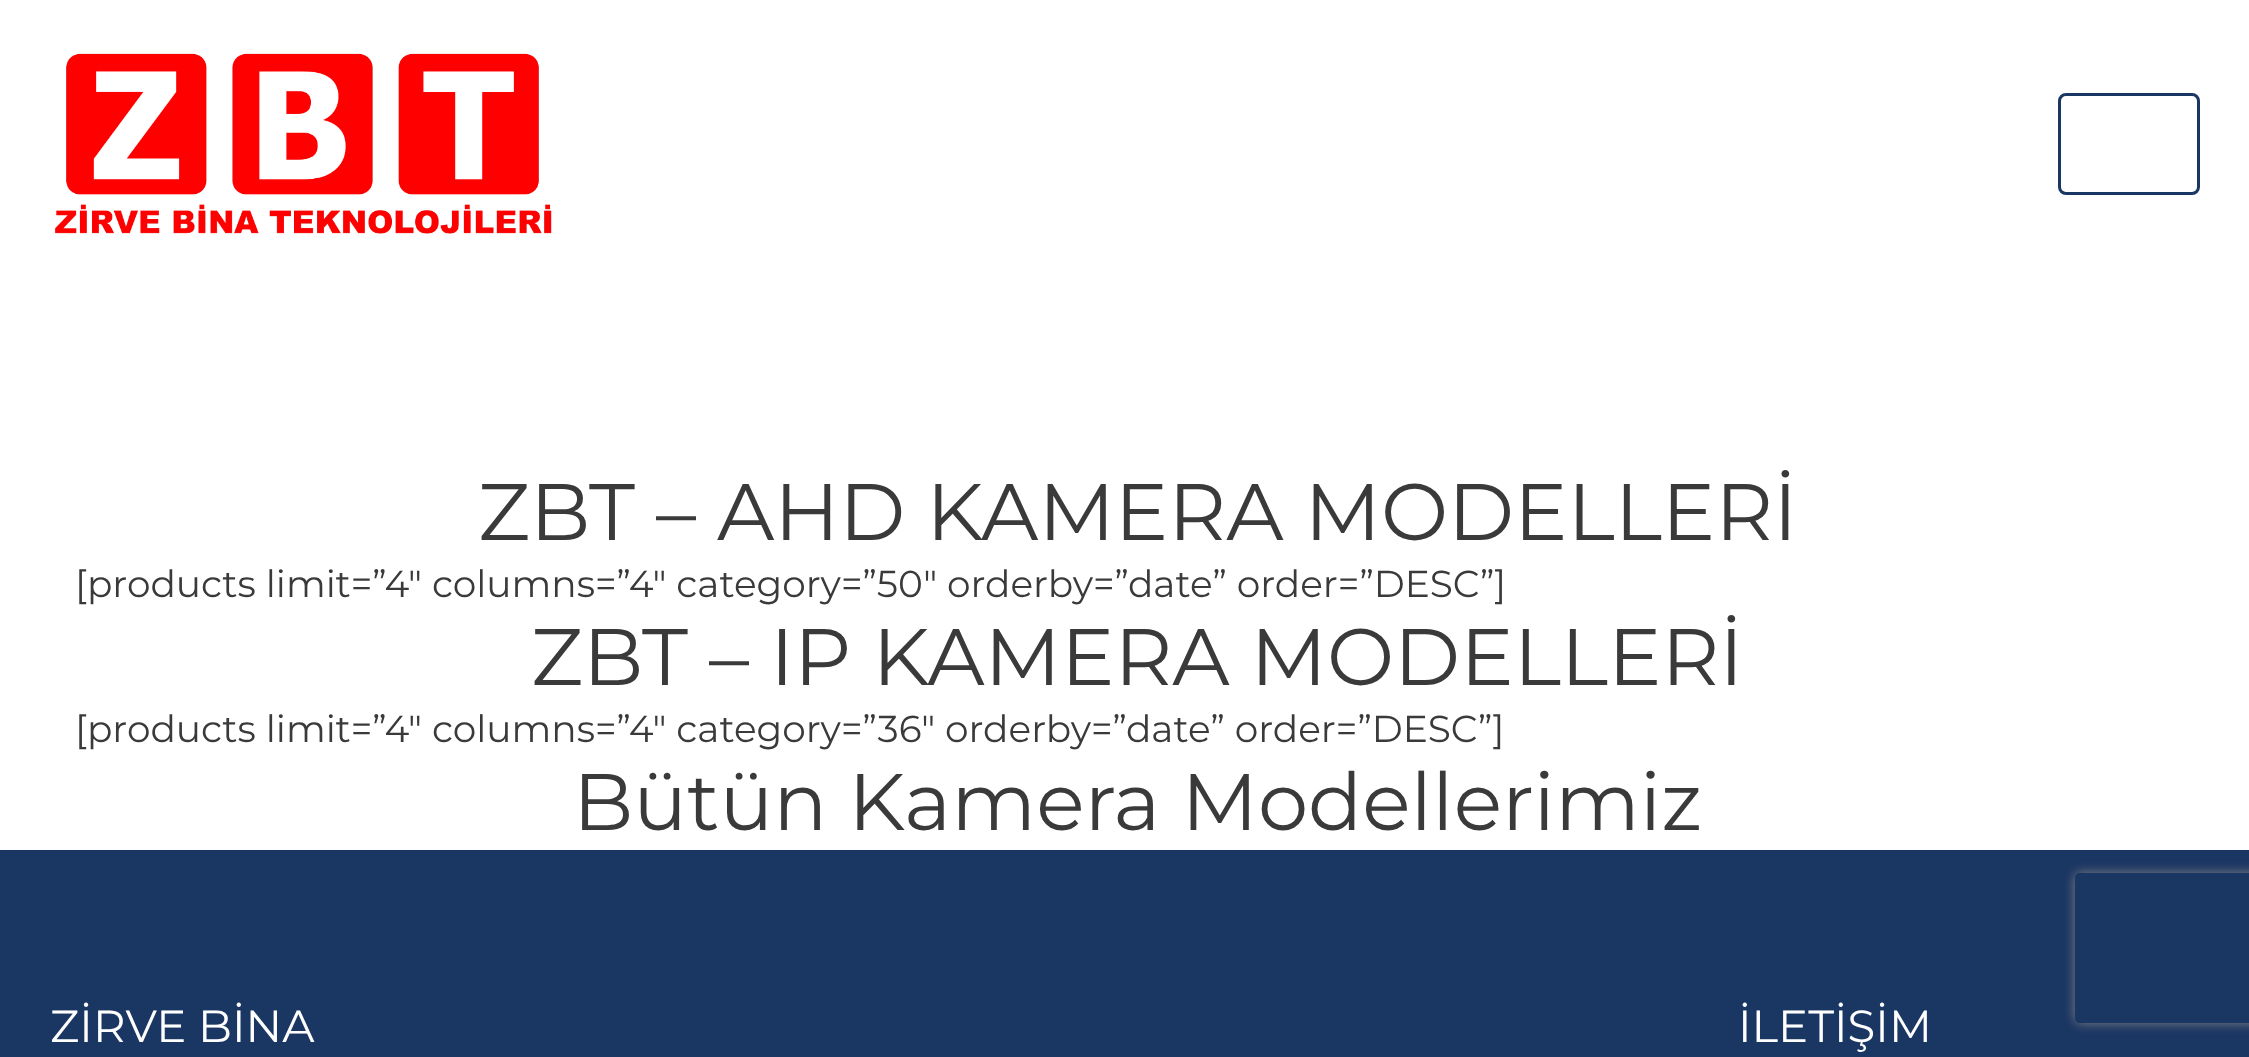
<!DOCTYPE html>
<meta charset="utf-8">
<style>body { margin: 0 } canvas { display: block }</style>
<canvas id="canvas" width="2249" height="1057"></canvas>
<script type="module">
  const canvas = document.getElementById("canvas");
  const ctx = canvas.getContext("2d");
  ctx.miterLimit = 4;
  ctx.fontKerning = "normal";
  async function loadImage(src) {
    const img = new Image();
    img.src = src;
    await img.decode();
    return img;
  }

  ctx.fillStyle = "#ffffff";
  ctx.fillRect(0, 0, 2249, 1057);
  ctx.drawImage(await loadImage("img1.png"), 55, 53, 497, 181);
  ctx.beginPath();
  ctx.roundRect(2059.5, 94.5, 139, 99, 6.5);
  ctx.strokeStyle = "#1a3663";
  ctx.lineWidth = 3;
  ctx.stroke();
  ctx.font = "80px Montserrat";
  ctx.fillStyle = "#3a3a3a";
  ctx.fillText("ZBT – AHD KAMERA MODELLERİ", 478, 540);
  ctx.font = "37.5px Montserrat";
  ctx.fillText("[products limit=”4″ columns=”4″ category=”50″ orderby=”date” order=”DESC”]", 75, 597);
  ctx.font = "80px Montserrat";
  ctx.fillText("ZBT – IP KAMERA MODELLERİ", 531, 685);
  ctx.font = "37.5px Montserrat";
  ctx.fillText("[products limit=”4″ columns=”4″ category=”36″ orderby=”date” order=”DESC”]", 75, 742);
  ctx.font = "80px Montserrat";
  ctx.fillText("Bütün Kamera Modellerimiz", 573, 830);
  ctx.fillStyle = "#1a3663";
  ctx.fillRect(0, 850, 2249, 207);
  ctx.font = "45px Montserrat";
  ctx.fillStyle = "#ffffff";
  ctx.fillText("ZİRVE BİNA", 50, 1042);
  ctx.fillText("İLETİŞİM", 1738, 1042);
  ctx.save();
  ctx.beginPath();
  ctx.moveTo(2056, 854);
  ctx.lineTo(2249, 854);
  ctx.lineTo(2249, 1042);
  ctx.lineTo(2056, 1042);
  ctx.closePath();
  ctx.moveTo(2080, 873);
  ctx.lineTo(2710, 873);
  ctx.bezierCurveTo(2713, 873, 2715, 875, 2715, 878);
  ctx.lineTo(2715, 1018);
  ctx.bezierCurveTo(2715, 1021, 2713, 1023, 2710, 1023);
  ctx.lineTo(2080, 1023);
  ctx.bezierCurveTo(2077, 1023, 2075, 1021, 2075, 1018);
  ctx.lineTo(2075, 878);
  ctx.bezierCurveTo(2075, 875, 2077, 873, 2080, 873);
  ctx.closePath();
  ctx.clip("evenodd");
  ctx.fillStyle = "#808080";
  ctx.filter = "blur(6px)";
  ctx.beginPath();
  ctx.roundRect(2075, 873, 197, 150, 5);
  ctx.fill();
  ctx.filter = "none";
  ctx.restore();
</script>
